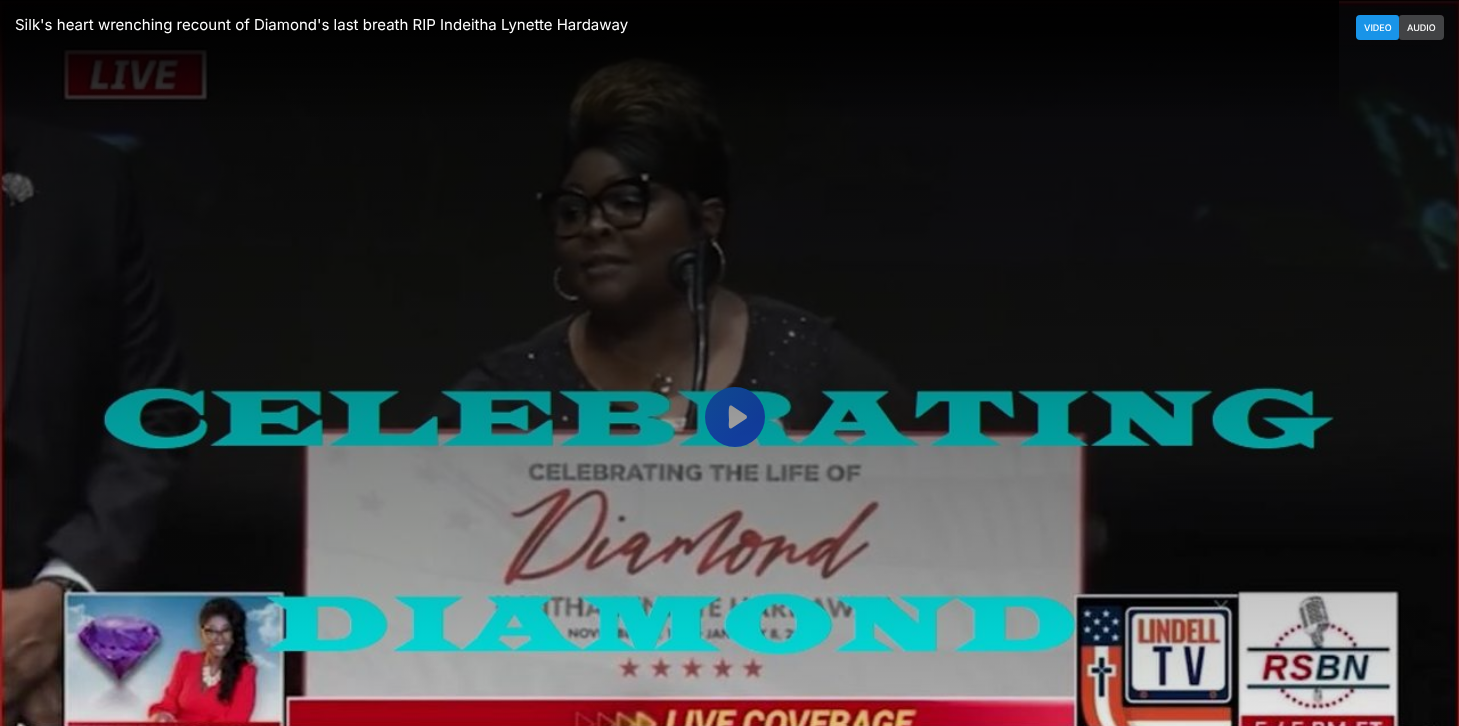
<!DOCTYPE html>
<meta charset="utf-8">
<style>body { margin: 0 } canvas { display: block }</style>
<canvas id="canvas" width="1459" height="726"></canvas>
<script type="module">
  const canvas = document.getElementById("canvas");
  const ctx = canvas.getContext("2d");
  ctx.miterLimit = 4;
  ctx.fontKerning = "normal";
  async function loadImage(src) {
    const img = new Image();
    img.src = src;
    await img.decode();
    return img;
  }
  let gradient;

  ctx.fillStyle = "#ffffff";
  ctx.fillRect(0, 0, 1459, 726);
  ctx.drawImage(await loadImage("img1.png"), 0, 0, 1459, 726);
  gradient = ctx.createLinearGradient(710, 386, 746, 430);
  gradient.addColorStop(0, "#1a7efa");
  gradient.addColorStop(1, "#1c61f9");
  ctx.fillStyle = gradient;
  ctx.beginPath();
  ctx.arc(735, 417, 30, 0, Math.PI * 2);
  ctx.fill();
  ctx.fillStyle = "#ffffff";
  ctx.beginPath();
  ctx.moveTo(732, 428);
  ctx.bezierCurveTo(727.5, 431, 729, 421.5, 729, 420);
  ctx.bezierCurveTo(729, 418, 728, 406.5, 730, 405.5);
  ctx.lineTo(731.5, 405.5);
  ctx.lineTo(746.5, 415.5);
  ctx.lineTo(747, 417);
  ctx.lineTo(746.5, 418.5);
  ctx.closePath();
  ctx.fill();
  gradient = ctx.createLinearGradient(730, 0, 730, 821);
  gradient.addColorStop(0, "rgba(0, 0, 0, 0.8)");
  gradient.addColorStop(1, "rgba(0, 0, 0, 0)");
  ctx.fillStyle = gradient;
  ctx.fillRect(0, 0, 1459, 726);
  gradient = ctx.createLinearGradient(670, 0, 670, 123);
  gradient.addColorStop(0.2, "rgba(0, 0, 0, 0.9)");
  gradient.addColorStop(1, "rgba(0, 0, 0, 0)");
  ctx.fillStyle = gradient;
  ctx.fillRect(0, 0, 1339, 117);
  ctx.font = "15px Inter";
  ctx.fillStyle = "#ffffff";
  ctx.fillText("Silk's heart wrenching recount of Diamond's last breath RIP Indeitha Lynette Hardaway", 15, 30);
  ctx.fillStyle = "#1994e8";
  ctx.beginPath();
  ctx.roundRect(1356, 15, 43, 25, [4, 3, 3, 4]);
  ctx.fill();
  ctx.font = "500 9px Inter";
  ctx.fillStyle = "#ffffff";
  ctx.fillText("VIDEO", 1364, 31);
  ctx.fillStyle = "#424345";
  ctx.beginPath();
  ctx.roundRect(1399, 15, 45, 25, [3, 4, 4, 3]);
  ctx.fill();
  ctx.fillStyle = "#ffffff";
  ctx.fillText("AUDIO", 1407, 31);
</script>
